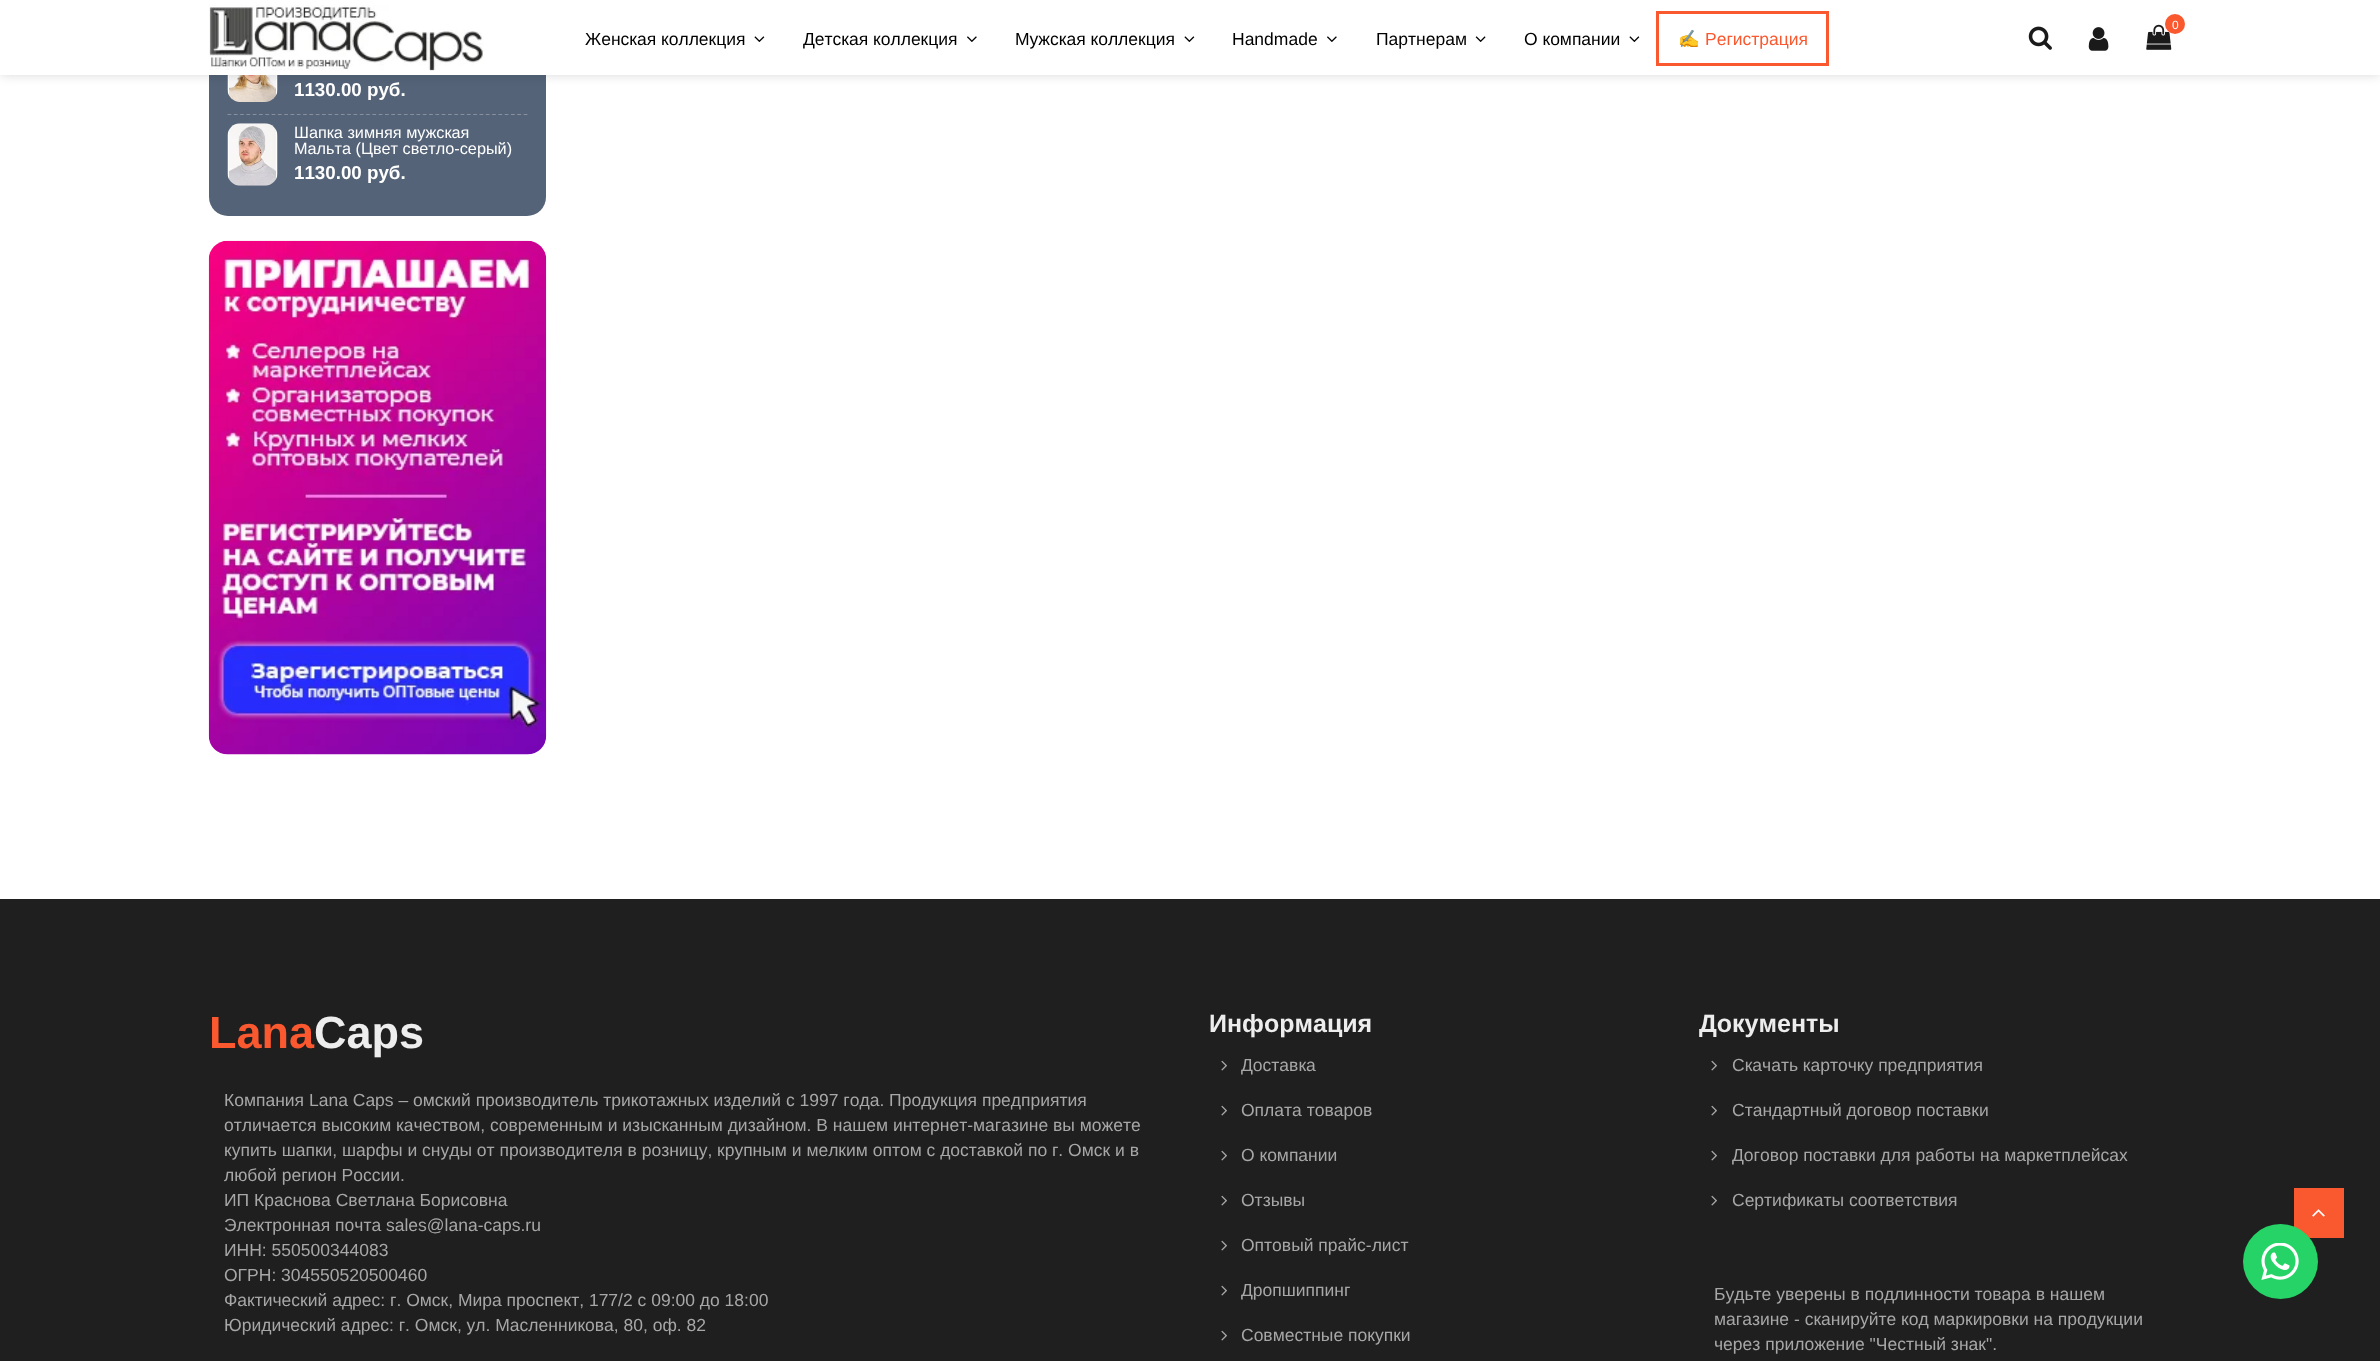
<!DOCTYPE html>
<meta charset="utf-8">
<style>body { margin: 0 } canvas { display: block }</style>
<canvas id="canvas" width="2380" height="1361"></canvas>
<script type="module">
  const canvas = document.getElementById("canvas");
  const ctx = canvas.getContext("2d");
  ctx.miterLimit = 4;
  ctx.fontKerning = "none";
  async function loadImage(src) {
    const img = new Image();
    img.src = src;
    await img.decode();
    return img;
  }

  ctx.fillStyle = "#ffffff";
  ctx.fillRect(0, 0, 2380, 1361);
  ctx.fillStyle = "#546378";
  ctx.beginPath();
  ctx.roundRect(209, -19, 337, 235, 19);
  ctx.fill();
  ctx.drawImage(await loadImage("img8.png"), 227, 75, 51, 27);
  ctx.fillStyle = "rgba(0, 0, 0, 0.15)";
  ctx.filter = "blur(5.5px)";
  ctx.beginPath();
  ctx.rect(0, 0, 2380, 75);
  ctx.fill();
  ctx.filter = "none";
  ctx.fillStyle = "#ffffff";
  ctx.fillRect(0, 0, 2380, 75);
  ctx.drawImage(await loadImage("img1.png"), 209, 5, 275, 66);
  ctx.drawImage(await loadImage("img2.png"), 2146, 24, 26, 26);
  ctx.fillStyle = "#fa582f";
  ctx.beginPath();
  ctx.arc(2175, 24, 10, 0, Math.PI * 2);
  ctx.fill();
  ctx.font = "12px Liberation Sans";
  ctx.fillStyle = "#ffffff";
  ctx.fillText("0", 2172, 29);
  ctx.drawImage(await loadImage("img3.png"), 2028, 26, 24, 24);
  ctx.drawImage(await loadImage("img4.png"), 2088, 27, 21, 24);
  ctx.font = "17.5px Liberation Sans";
  ctx.fillStyle = "#000000";
  ctx.fillText("Женская коллекция", 585, 45);
  ctx.drawImage(await loadImage("img5.png"), 754, 36, 11, 6);
  ctx.fillText("Детская коллекция", 803, 45);
  ctx.drawImage(await loadImage("img6.png"), 967, 36, 10, 6);
  ctx.fillText("Мужская коллекция", 1015, 45);
  ctx.drawImage(await loadImage("img5.png"), 1184, 36, 11, 6);
  ctx.fillText("Handmade", 1232, 45);
  ctx.drawImage(await loadImage("img6.png"), 1327, 36, 10, 6);
  ctx.fillText("Партнерам", 1376, 45);
  ctx.drawImage(await loadImage("img7.png"), 1475, 36, 11, 6);
  ctx.fillText("О компании", 1524, 45);
  ctx.drawImage(await loadImage("img5.png"), 1629, 36, 11, 6);
  ctx.strokeStyle = "#fa582f";
  ctx.lineWidth = 3;
  ctx.strokeRect(1657.5, 12.5, 170, 52);
  ctx.font = "17.5px Noto Color Emoji";
  ctx.fillStyle = "#fa582f";
  ctx.fillText("✍", 1678, 45);
  ctx.font = "17.5px Liberation Sans";
  ctx.fillText("Регистрация", 1705, 45);
  ctx.font = "bold 18.75px Liberation Sans";
  ctx.fillStyle = "#ffffff";
  ctx.fillText("1130.00 руб.", 294, 96);
  ctx.beginPath();
  ctx.moveTo(227.5, 114.5);
  ctx.lineTo(527.5, 114.5);
  ctx.strokeStyle = "#86909f";
  ctx.lineWidth = 1.2;
  ctx.setLineDash([3.75, 2.55]);
  ctx.stroke();
  ctx.drawImage(await loadImage("img9.png"), 227, 123, 51, 63);
  ctx.font = "16.25px Liberation Sans";
  ctx.fillText("Шапка зимняя мужская", 294, 138);
  ctx.fillText("Мальта (Цвет светло-серый)", 294, 154);
  ctx.font = "bold 18.75px Liberation Sans";
  ctx.fillText("1130.00 руб.", 294, 179);
  ctx.drawImage(await loadImage("img10.png"), 208, 240, 339, 515);
  ctx.fillStyle = "#1f1f1f";
  ctx.fillRect(0, 899, 2380, 462);
  ctx.font = "bold 45px Liberation Sans";
  ctx.fillStyle = "#fa582f";
  ctx.fillText("Lana", 209, 1048);
  ctx.fillStyle = "#ededed";
  ctx.fillText("Caps", 314, 1048);
  ctx.font = "17.5px Liberation Sans";
  ctx.fillStyle = "#a7a7a7";
  ctx.fillText("Компания Lana Caps – омский производитель трикотажных изделий с 1997 года. Продукция предприятия", 224, 1106);
  ctx.fillText("отличается высоким качеством, современным и изысканным дизайном. В нашем интернет-магазине вы можете", 224, 1131);
  ctx.fillText("купить шапки, шарфы и снуды от производителя в розницу,", 224, 1156);
  ctx.fillText("крупным и мелким оптом с доставкой по г. Омск и в", 717, 1156);
  ctx.fillText("любой регион России.", 224, 1181);
  ctx.fillText("ИП Краснова Светлана Борисовна", 224, 1206);
  ctx.fillText("Электронная почта sales@lana-caps.ru", 224, 1231);
  ctx.fillText("ИНН: 550500344083", 224, 1256);
  ctx.fillText("ОГРН: 304550520500460", 224, 1281);
  ctx.fillText("Фактический адрес: г. Омск, Мира проспект, 177/2 c 09:00 до 18:00", 224, 1306);
  ctx.fillText("Юридический адрес: г. Омск, ул. Масленникова, 80, оф. 82", 224, 1331);
  ctx.font = "bold 25px Liberation Sans";
  ctx.fillStyle = "#ededed";
  ctx.fillText("Информация", 1209, 1032);
  ctx.drawImage(await loadImage("img11.png"), 1221, 1060, 6, 11);
  ctx.font = "17.5px Liberation Sans";
  ctx.fillStyle = "#a7a7a7";
  ctx.fillText("Доставка", 1241, 1071);
  ctx.drawImage(await loadImage("img11.png"), 1221, 1105, 6, 11);
  ctx.fillText("Оплата товаров", 1241, 1116);
  ctx.drawImage(await loadImage("img11.png"), 1221, 1150, 6, 11);
  ctx.fillText("О компании", 1241, 1161);
  ctx.drawImage(await loadImage("img11.png"), 1221, 1195, 6, 11);
  ctx.fillText("Отзывы", 1241, 1206);
  ctx.drawImage(await loadImage("img11.png"), 1221, 1240, 6, 11);
  ctx.fillText("Оптовый прайс-лист", 1241, 1251);
  ctx.drawImage(await loadImage("img11.png"), 1221, 1285, 6, 11);
  ctx.fillText("Дропшиппинг", 1241, 1296);
  ctx.drawImage(await loadImage("img11.png"), 1221, 1330, 6, 11);
  ctx.fillText("Совместные покупки", 1241, 1341);
  ctx.font = "bold 25px Liberation Sans";
  ctx.fillStyle = "#ededed";
  ctx.fillText("Документы", 1699, 1032);
  ctx.drawImage(await loadImage("img11.png"), 1711, 1060, 6, 11);
  ctx.font = "17.5px Liberation Sans";
  ctx.fillStyle = "#a7a7a7";
  ctx.fillText("Скачать карточку предприятия", 1732, 1071);
  ctx.drawImage(await loadImage("img11.png"), 1711, 1105, 6, 11);
  ctx.fillText("Стандартный договор поставки", 1732, 1116);
  ctx.drawImage(await loadImage("img11.png"), 1711, 1150, 6, 11);
  ctx.fillText("Договор поставки для работы на маркетплейсах", 1732, 1161);
  ctx.drawImage(await loadImage("img11.png"), 1711, 1195, 6, 11);
  ctx.fillText("Сертификаты соответствия", 1732, 1206);
  ctx.fillText("Будьте уверены в подлинности товара в нашем", 1714, 1300);
  ctx.fillText("магазине - сканируйте код маркировки на продукции", 1714, 1325);
  ctx.fillText("через приложение \"Честный знак\".", 1714, 1350);
  ctx.fillStyle = "#fa582f";
  ctx.fillRect(2294, 1188, 50, 50);
  ctx.fillStyle = "#25d366";
  ctx.beginPath();
  ctx.arc(2280.5, 1261.5, 37.5, 0, Math.PI * 2);
  ctx.fill();
  ctx.drawImage(await loadImage("img12.png"), 2261, 1243, 38, 37);
  ctx.drawImage(await loadImage("img13.png"), 2312, 1209, 13, 8);
</script>
